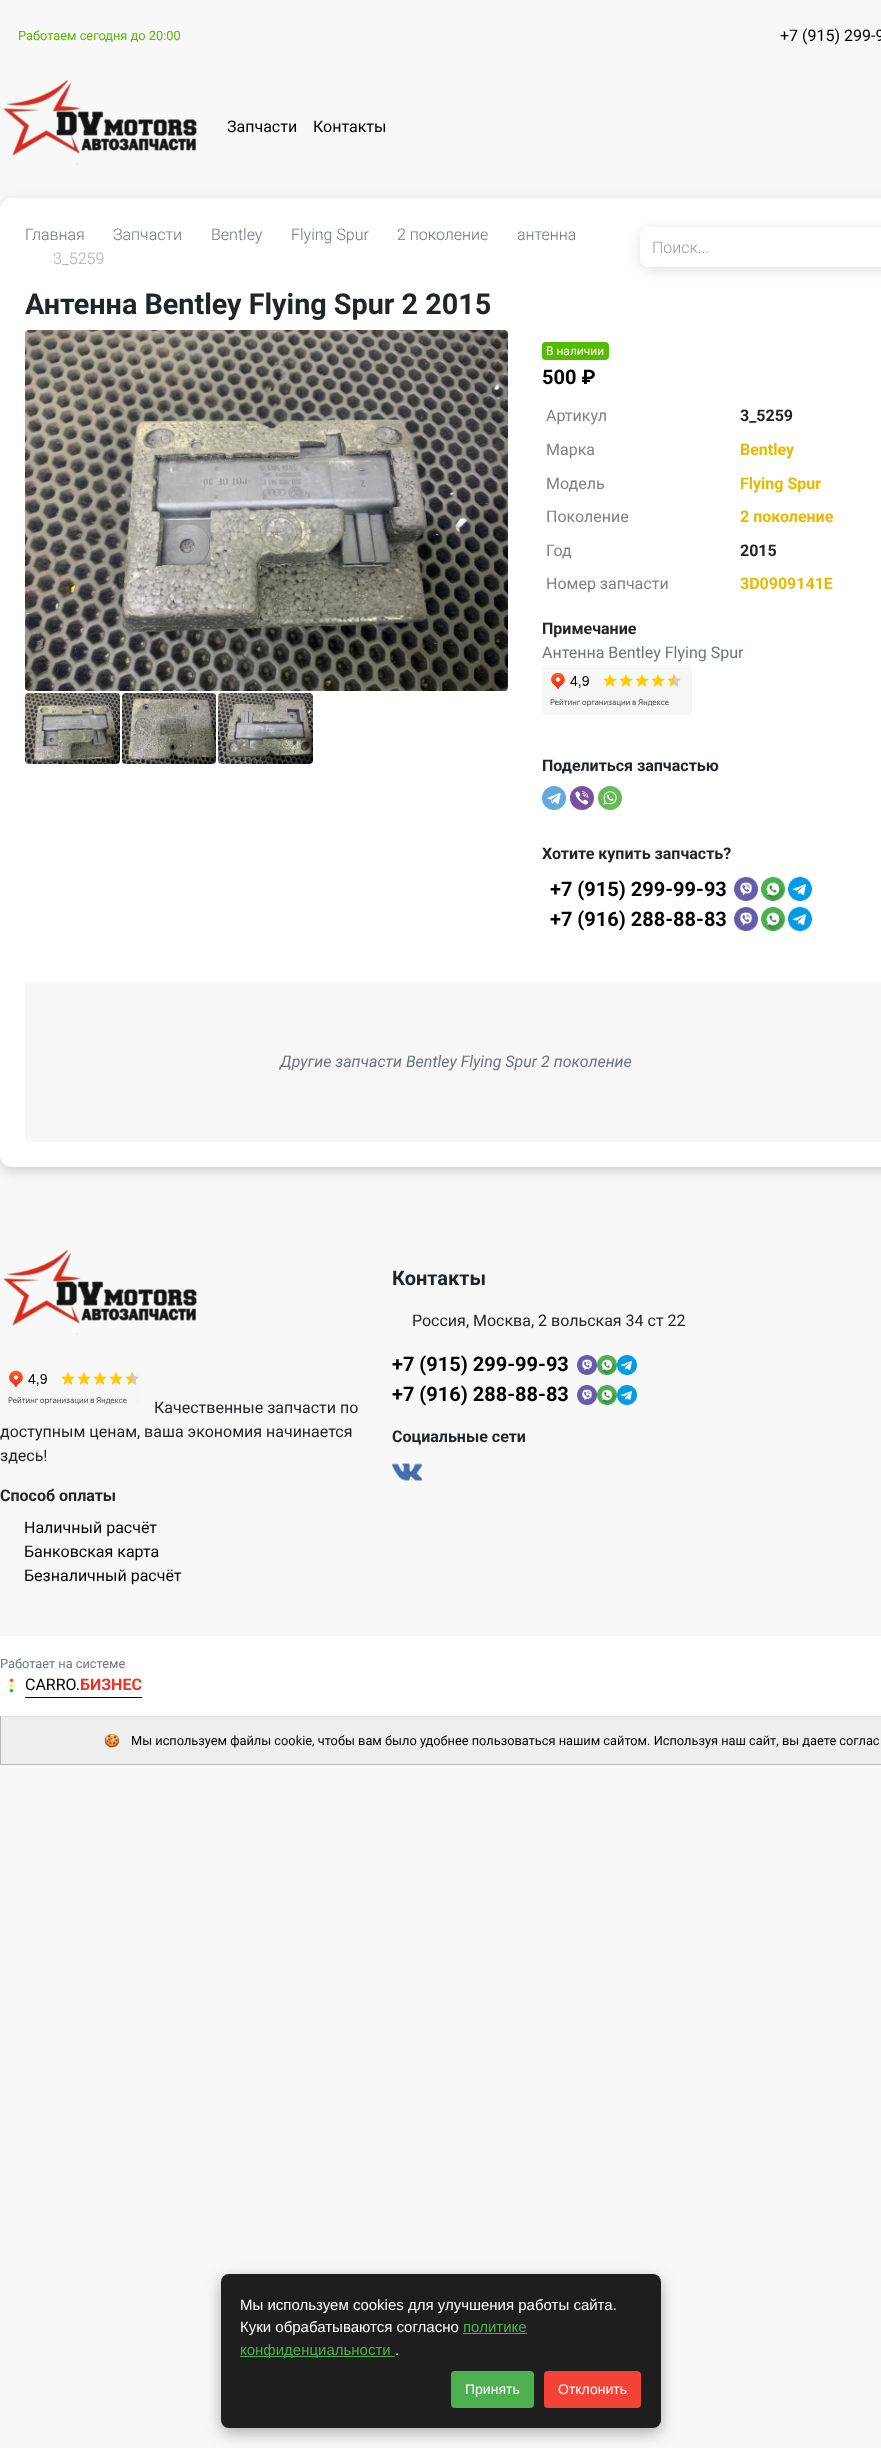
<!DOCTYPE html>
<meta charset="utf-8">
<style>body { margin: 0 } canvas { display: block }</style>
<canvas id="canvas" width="881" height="2448"></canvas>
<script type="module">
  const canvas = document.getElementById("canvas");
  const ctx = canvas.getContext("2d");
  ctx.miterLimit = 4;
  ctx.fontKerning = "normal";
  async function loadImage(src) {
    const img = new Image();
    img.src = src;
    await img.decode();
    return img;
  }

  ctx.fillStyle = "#f8f8f8";
  ctx.fillRect(0, 0, 881, 2448);
  ctx.font = "12.8px Roboto";
  ctx.fillStyle = "#55bb00";
  ctx.fillText("Работаем сегодня до 20:00", 18, 40);
  ctx.font = "16px Roboto";
  ctx.fillStyle = "#000000";
  ctx.fillText("+7 (915) 299-9", 780, 41);
  ctx.drawImage(await loadImage("img1.png"), 3, 80, 194, 85);
  ctx.fillText("Запчасти", 227, 132);
  ctx.fillText("Контакты", 313, 132);
  ctx.fillStyle = "rgba(0, 0, 0, 0.16)";
  ctx.filter = "blur(6px)";
  ctx.beginPath();
  ctx.roundRect(0, 202, 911, 969, 12);
  ctx.fill();
  ctx.filter = "none";
  ctx.fillStyle = "#ffffff";
  ctx.beginPath();
  ctx.roundRect(0, 198, 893, 969, 12);
  ctx.fill();
  ctx.font = "300 16px Roboto";
  ctx.fillStyle = "#6c757d";
  ctx.fillText("Главная", 25, 240);
  ctx.fillText("Запчасти", 113, 240);
  ctx.fillText("Bentley", 211, 240);
  ctx.fillText("Flying Spur", 291, 240);
  ctx.fillText("2 поколение", 397, 240);
  ctx.fillText("антенна", 517, 240);
  ctx.fillStyle = "#acacac";
  ctx.fillText("3_5259", 53, 264);
  ctx.fillStyle = "rgba(0, 0, 0, 0.12)";
  ctx.filter = "blur(7px)";
  ctx.beginPath();
  ctx.roundRect(640, 230, 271, 40, 9);
  ctx.fill();
  ctx.filter = "none";
  ctx.fillStyle = "#ffffff";
  ctx.beginPath();
  ctx.moveTo(649, 227);
  ctx.lineTo(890, 227);
  ctx.lineTo(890, 267);
  ctx.lineTo(649, 267);
  ctx.bezierCurveTo(644, 267, 640, 263, 640, 258);
  ctx.lineTo(640, 236);
  ctx.bezierCurveTo(640, 231, 644, 227, 649, 227);
  ctx.closePath();
  ctx.fill();
  ctx.fillStyle = "#999999";
  ctx.fillText("Поиск...", 652, 253);
  ctx.font = "bold 28.75px Roboto";
  ctx.fillStyle = "#212529";
  ctx.fillText("Антенна Bentley Flying Spur 2 2015", 25, 314);
  ctx.drawImage(await loadImage("img2.png"), 25, 330, 483, 361);
  ctx.drawImage(await loadImage("img3.png"), 25, 693, 95, 71);
  ctx.drawImage(await loadImage("img4.png"), 122, 693, 94, 71);
  ctx.drawImage(await loadImage("img5.png"), 218, 693, 95, 71);
  ctx.fillStyle = "#55bb00";
  ctx.beginPath();
  ctx.roundRect(542, 342, 67, 18, 4);
  ctx.fill();
  ctx.font = "12px Roboto";
  ctx.fillStyle = "#ffffff";
  ctx.fillText("В наличии", 546, 355);
  ctx.font = "bold 20px Roboto";
  ctx.fillStyle = "#000000";
  ctx.fillText("500 ₽", 542, 384);
  ctx.font = "16px Roboto";
  ctx.fillStyle = "#808080";
  ctx.fillText("Артикул", 546, 421);
  ctx.font = "bold 16px Roboto";
  ctx.fillStyle = "#212529";
  ctx.fillText("3_5259", 740, 421);
  ctx.font = "16px Roboto";
  ctx.fillStyle = "#808080";
  ctx.fillText("Марка", 546, 455);
  ctx.font = "bold 16px Roboto";
  ctx.fillStyle = "#e9b800";
  ctx.fillText("Bentley", 740, 455);
  ctx.font = "16px Roboto";
  ctx.fillStyle = "#808080";
  ctx.fillText("Модель", 546, 489);
  ctx.font = "bold 16px Roboto";
  ctx.fillStyle = "#e9b800";
  ctx.fillText("Flying Spur", 740, 489);
  ctx.font = "16px Roboto";
  ctx.fillStyle = "#808080";
  ctx.fillText("Поколение", 546, 522);
  ctx.font = "bold 16px Roboto";
  ctx.fillStyle = "#e9b800";
  ctx.fillText("2 поколение", 740, 522);
  ctx.font = "16px Roboto";
  ctx.fillStyle = "#808080";
  ctx.fillText("Год", 546, 556);
  ctx.font = "bold 16px Roboto";
  ctx.fillStyle = "#212529";
  ctx.fillText("2015", 740, 556);
  ctx.font = "16px Roboto";
  ctx.fillStyle = "#808080";
  ctx.fillText("Номер запчасти", 546, 589);
  ctx.font = "bold 16px Roboto";
  ctx.fillStyle = "#e9b800";
  ctx.fillText("3D0909141E", 740, 589);
  ctx.fillStyle = "#212529";
  ctx.fillText("Примечание", 542, 634);
  ctx.font = "16px Roboto";
  ctx.fillStyle = "#6c757d";
  ctx.fillText("Антенна Bentley Flying Spur", 542, 658);
  ctx.drawImage(await loadImage("img6.png"), 542, 665, 150, 50);
  ctx.font = "bold 16px Roboto";
  ctx.fillStyle = "#212529";
  ctx.fillText("Поделиться запчастью", 542, 771);
  ctx.fillStyle = "#64a9dc";
  ctx.beginPath();
  ctx.arc(554, 798, 12, 0, Math.PI * 2);
  ctx.fill();
  ctx.drawImage(await loadImage("img7.png"), 547, 793, 14, 12);
  ctx.fillStyle = "#7b519d";
  ctx.beginPath();
  ctx.arc(582, 798, 12, 0, Math.PI * 2);
  ctx.fill();
  ctx.drawImage(await loadImage("img8.png"), 575, 791, 14, 14);
  ctx.fillStyle = "#65bc54";
  ctx.beginPath();
  ctx.arc(610, 798, 12, 0, Math.PI * 2);
  ctx.fill();
  ctx.drawImage(await loadImage("img9.png"), 603, 791, 14, 14);
  ctx.fillStyle = "#212529";
  ctx.fillText("Хотите купить запчасть?", 542, 859);
  ctx.font = "bold 20px Roboto";
  ctx.fillStyle = "#000000";
  ctx.fillText("+7 (915) 299-99-93", 550, 896);
  ctx.drawImage(await loadImage("img10.png"), 734, 877, 24, 24);
  ctx.drawImage(await loadImage("img11.png"), 761, 877, 24, 24);
  ctx.drawImage(await loadImage("img12.png"), 788, 877, 24, 24);
  ctx.fillText("+7 (916) 288-88-83", 550, 926);
  ctx.drawImage(await loadImage("img10.png"), 734, 907, 24, 24);
  ctx.drawImage(await loadImage("img11.png"), 761, 907, 24, 24);
  ctx.drawImage(await loadImage("img12.png"), 788, 907, 24, 24);
  ctx.fillStyle = "#f7f7f7";
  ctx.beginPath();
  ctx.roundRect(25, 982, 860, 160, 4);
  ctx.fill();
  ctx.font = "italic 16px Roboto";
  ctx.fillStyle = "#6c757d";
  ctx.fillText("Другие запчасти Bentley Flying Spur 2 поколение", 280, 1067);
  ctx.font = "bold 20px Roboto";
  ctx.fillStyle = "#212529";
  ctx.fillText("Контакты", 392, 1285);
  ctx.font = "16px Roboto";
  ctx.fillText("Россия, Москва, 2 вольская 34 ст 22", 412, 1326);
  ctx.font = "bold 20px Roboto";
  ctx.fillStyle = "#000000";
  ctx.fillText("+7 (915) 299-99-93", 392, 1371);
  ctx.drawImage(await loadImage("img13.png"), 577, 1355, 20, 20);
  ctx.drawImage(await loadImage("img14.png"), 597, 1355, 20, 20);
  ctx.drawImage(await loadImage("img15.png"), 617, 1355, 20, 20);
  ctx.fillText("+7 (916) 288-88-83", 392, 1401);
  ctx.drawImage(await loadImage("img13.png"), 577, 1385, 20, 20);
  ctx.drawImage(await loadImage("img14.png"), 597, 1385, 20, 20);
  ctx.drawImage(await loadImage("img15.png"), 617, 1385, 20, 20);
  ctx.font = "bold 16px Roboto";
  ctx.fillStyle = "#212529";
  ctx.fillText("Социальные сети", 392, 1442);
  ctx.drawImage(await loadImage("img16.png"), 392, 1463, 30, 18);
  ctx.drawImage(await loadImage("img1.png"), 3, 1250, 194, 85);
  ctx.drawImage(await loadImage("img17.png"), 8, 1371, 131, 34);
  ctx.font = "16px Roboto";
  ctx.fillText("Качественные запчасти по", 154, 1413);
  ctx.fillText("доступным ценам, ваша экономия начинается", 0, 1437);
  ctx.fillText("здесь!", 0, 1461);
  ctx.font = "bold 16px Roboto";
  ctx.fillText("Способ оплаты", 0, 1501);
  ctx.font = "16px Roboto";
  ctx.fillStyle = "#000000";
  ctx.fillText("Наличный расчёт", 24, 1533);
  ctx.fillText("Банковская карта", 24, 1557);
  ctx.fillText("Безналичный расчёт", 24, 1581);
  ctx.fillStyle = "#ffffff";
  ctx.fillRect(0, 1636, 881, 80);
  ctx.font = "12.8px Roboto";
  ctx.fillStyle = "#6c757d";
  ctx.fillText("Работает на системе", 0, 1668);
  ctx.drawImage(await loadImage("img18.png"), 9, 1678, 5, 15);
  ctx.fillStyle = "#000000";
  ctx.fillRect(25, 1697, 117, 1);
  ctx.font = "16px Roboto";
  ctx.fillText("CARRO.", 25, 1690);
  ctx.font = "bold 16px Roboto";
  ctx.fillStyle = "#f03226";
  ctx.fillText("БИЗНЕС", 80, 1690);
  ctx.fillStyle = "#eeeeee";
  ctx.fillRect(1, 1717, 880, 47);
  ctx.fillStyle = "#dee2e6";
  ctx.fillRect(0, 1716, 881, 1);
  ctx.fillStyle = "#b8b8b8";
  ctx.fillRect(0, 1764, 881, 1);
  ctx.fillRect(0, 1716, 1, 49);
  ctx.font = "12.8px Noto Color Emoji";
  ctx.fillStyle = "#000000";
  ctx.fillText("🍪", 104, 1745);
  ctx.font = "12.8px Roboto";
  ctx.fillText("Мы используем файлы cookie, чтобы вам было удобнее пользоваться нашим сайтом. Используя наш сайт, вы даете соглас", 131, 1745);
  ctx.fillStyle = "rgba(0, 0, 0, 0.3)";
  ctx.filter = "blur(7.5px)";
  ctx.beginPath();
  ctx.roundRect(221, 2279, 440, 154, 8);
  ctx.fill();
  ctx.filter = "none";
  ctx.fillStyle = "#1e1e1e";
  ctx.beginPath();
  ctx.roundRect(221, 2274, 440, 154, 8);
  ctx.fill();
  ctx.font = "15px Liberation Sans";
  ctx.fillStyle = "#ffffff";
  ctx.fillText("Мы используем cookies для улучшения работы сайта.", 240, 2310);
  ctx.fillText("Куки обрабатываются согласно", 240, 2332);
  ctx.fillStyle = "#4caf50";
  ctx.fillText("политике", 463, 2332);
  ctx.fillRect(463, 2333, 64, 1);
  ctx.fillRect(240, 2356, 155, 1);
  ctx.fillText("конфиденциальности", 240, 2355);
  ctx.fillStyle = "#ffffff";
  ctx.fillText(".", 395, 2355);
  ctx.fillStyle = "#4caf50";
  ctx.beginPath();
  ctx.roundRect(451, 2371, 83, 37, 4);
  ctx.fill();
  ctx.font = "14px Liberation Sans";
  ctx.fillStyle = "#ffffff";
  ctx.fillText("Принять", 465, 2394);
  ctx.fillStyle = "#f44336";
  ctx.beginPath();
  ctx.roundRect(544, 2371, 97, 37, 4);
  ctx.fill();
  ctx.fillStyle = "#ffffff";
  ctx.fillText("Отклонить", 558, 2394);
</script>
